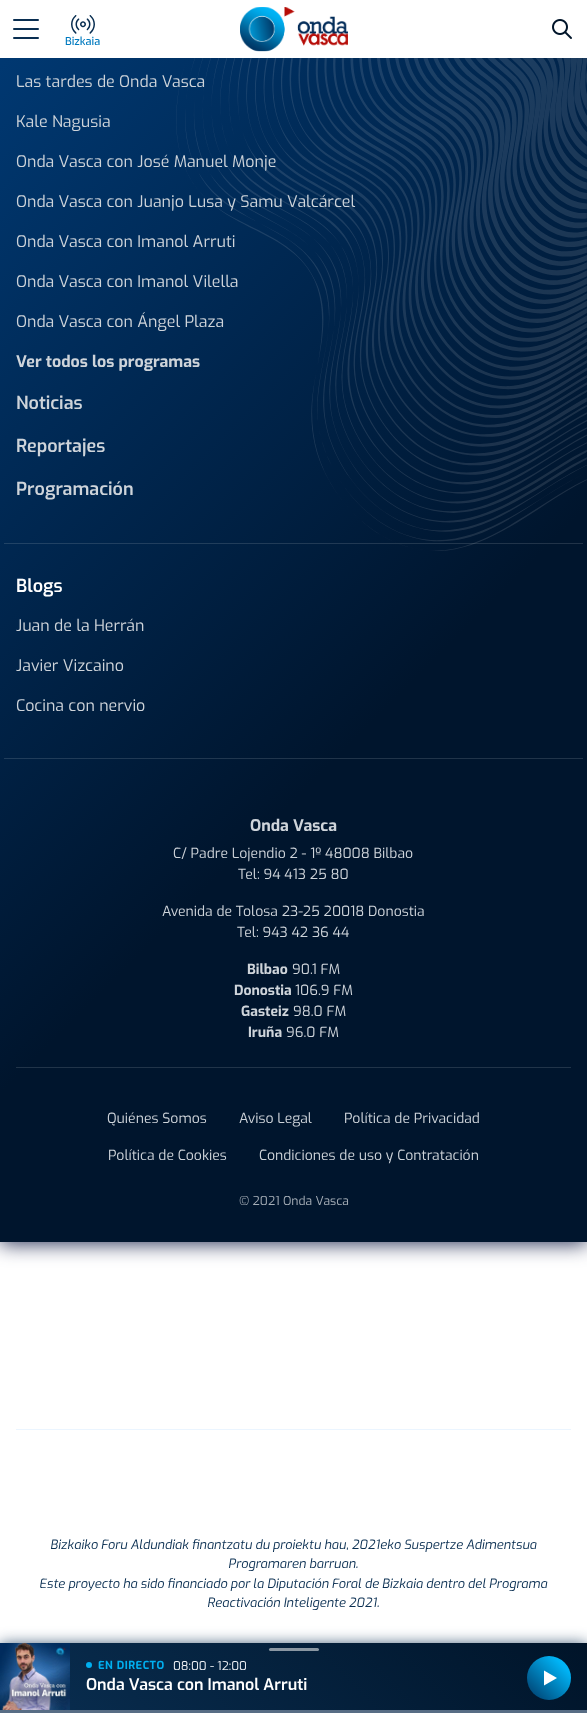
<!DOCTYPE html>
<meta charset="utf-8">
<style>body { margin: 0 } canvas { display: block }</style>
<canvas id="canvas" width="587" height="1713"></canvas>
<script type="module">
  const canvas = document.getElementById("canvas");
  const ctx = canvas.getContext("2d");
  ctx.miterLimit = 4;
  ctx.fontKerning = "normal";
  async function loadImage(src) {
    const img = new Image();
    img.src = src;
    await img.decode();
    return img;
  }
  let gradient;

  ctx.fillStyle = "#ffffff";
  ctx.fillRect(0, 0, 587, 1713);
  ctx.fillStyle = "#2c3459";
  ctx.filter = "blur(10px)";
  ctx.beginPath();
  ctx.rect(0, -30, 587, 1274);
  ctx.fill();
  ctx.filter = "none";
  ctx.fillStyle = "#ffffff";
  ctx.fillRect(0, 0, 587, 58);
  ctx.drawImage(await loadImage("img1.png"), 240, 7, 108, 45);
  ctx.drawImage(await loadImage("img2.png"), 552, 19, 20, 20);
  ctx.fillStyle = "#092e51";
  ctx.beginPath();
  ctx.roundRect(13, 19, 26, 2, 1);
  ctx.fill();
  ctx.beginPath();
  ctx.roundRect(13, 28, 26, 2, 1);
  ctx.fill();
  ctx.beginPath();
  ctx.roundRect(13, 37, 26, 2, 1);
  ctx.fill();
  ctx.drawImage(await loadImage("img3.png"), 71, 15, 24, 19);
  ctx.font = "500 11px Exo";
  ctx.fillStyle = "#007abf";
  ctx.fillText("Bizkaia", 65, 45);
  gradient = ctx.createLinearGradient(-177, 123, 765, 1065);
  gradient.addColorStop(0, "#003c79");
  gradient.addColorStop(0.61, "#00152d");
  gradient.addColorStop(1, "#00152d");
  ctx.fillStyle = gradient;
  ctx.fillRect(0, 58, 587, 1184);
  gradient = ctx.createLinearGradient(-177, 123, 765, 1065);
  gradient.addColorStop(0, "#215589");
  gradient.addColorStop(0.61, "#213449");
  gradient.addColorStop(1, "#213449");
  ctx.fillStyle = gradient;
  ctx.fillRect(4, 758, 579, 1);
  ctx.drawImage(await loadImage("img4.png"), 176, 58, 411, 493);
  ctx.font = "16px Exo";
  ctx.fillStyle = "#ced4da";
  ctx.fillText("Las tardes de Onda Vasca", 16, 87);
  ctx.fillText("Kale Nagusia", 16, 127);
  ctx.fillText("Onda Vasca con José Manuel Monje", 16, 167);
  ctx.fillText("Onda Vasca con Juanjo Lusa y Samu Valcárcel", 16, 207);
  ctx.fillText("Onda Vasca con Imanol Arruti", 16, 247);
  ctx.fillText("Onda Vasca con Imanol Vilella", 16, 287);
  ctx.fillText("Onda Vasca con Ángel Plaza", 16, 327);
  ctx.font = "bold 16px Exo";
  ctx.fillText("Ver todos los programas", 16, 367);
  ctx.font = "600 18px Exo";
  ctx.fillText("Noticias", 16, 409);
  ctx.fillText("Reportajes", 16, 452);
  ctx.fillText("Programación", 16, 495);
  ctx.fillStyle = "rgba(222, 226, 230, 0.15)";
  ctx.fillRect(4, 543, 579, 1);
  ctx.fillStyle = "#ffffff";
  ctx.fillText("Blogs", 16, 592);
  ctx.font = "16px Exo";
  ctx.fillStyle = "#ced4da";
  ctx.fillText("Juan de la Herrán", 16, 631);
  ctx.fillText("Javier Vizcaino", 16, 671);
  ctx.fillText("Cocina con nervio", 16, 711);
  ctx.font = "bold 16px Exo";
  ctx.fillText("Onda Vasca", 250, 831);
  ctx.font = "14px Exo";
  ctx.fillText("C/ Padre Lojendio 2 - 1º 48008 Bilbao", 173, 858);
  ctx.fillText("Tel: 94 413 25 80", 238, 879);
  ctx.fillText("Avenida de Tolosa 23-25 20018 Donostia", 162, 916);
  ctx.fillText("Tel: 943 42 36 44", 237, 937);
  ctx.font = "bold 14px Exo";
  ctx.fillText("Bilbao", 247, 974);
  ctx.font = "14px Exo";
  ctx.fillText("90.1 FM", 292, 974);
  ctx.font = "bold 14px Exo";
  ctx.fillText("Donostia", 234, 995);
  ctx.font = "14px Exo";
  ctx.fillText("106.9 FM", 295, 995);
  ctx.font = "bold 14px Exo";
  ctx.fillText("Gasteiz", 241, 1016);
  ctx.font = "14px Exo";
  ctx.fillText("98.0 FM", 293, 1016);
  ctx.font = "bold 14px Exo";
  ctx.fillText("Iruña", 248, 1037);
  ctx.font = "14px Exo";
  ctx.fillText("96.0 FM", 286, 1037);
  ctx.fillStyle = "#213449";
  ctx.fillRect(16, 1067, 555, 1);
  ctx.fillStyle = "#ced4da";
  ctx.fillText("Quiénes Somos", 107, 1123);
  ctx.fillText("Aviso Legal", 239, 1123);
  ctx.fillText("Política de Privacidad", 344, 1123);
  ctx.fillText("Política de Cookies", 108, 1160);
  ctx.fillText("Condiciones de uso y Contratación", 259, 1160);
  ctx.font = "12.25px Exo";
  ctx.fillStyle = "#a5aeb7";
  ctx.fillText("© 2021 Onda Vasca", 239, 1205);
  ctx.fillStyle = "#ebf5ff";
  ctx.fillRect(16, 1429, 555, 1);
  ctx.font = "italic 12.8px Exo";
  ctx.fillStyle = "#092e51";
  ctx.fillText("Bizkaiko Foru Aldundiak finantzatu du proiektu hau, 2021eko Suspertze Adimentsua", 50, 1549);
  ctx.fillText("Programaren barruan.", 228, 1568);
  ctx.fillText("Este proyecto ha sido financiado por la Diputación Foral de Bizkaia dentro del Programa", 39, 1588);
  ctx.fillText("Reactivación Inteligente 2021.", 207, 1607);
  ctx.fillStyle = "rgba(9, 46, 81, 0.9)";
  ctx.filter = "blur(8px)";
  ctx.beginPath();
  ctx.rect(0, 1645, 587, 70);
  ctx.fill();
  ctx.filter = "none";
  gradient = ctx.createLinearGradient(129, 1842, 458, 1514);
  gradient.addColorStop(0, "#092e51");
  gradient.addColorStop(1, "#001429");
  ctx.fillStyle = gradient;
  ctx.fillRect(70, 1643, 517, 67);
  ctx.fillStyle = "rgba(173, 181, 189, 0.8)";
  ctx.beginPath();
  ctx.roundRect(269, 1648, 50, 3, 1.5);
  ctx.fill();
  ctx.drawImage(await loadImage("img5.png"), 0, 1643, 70, 67);
  ctx.fillStyle = "#00aff0";
  ctx.beginPath();
  ctx.arc(89, 1665, 3, 0, Math.PI * 2);
  ctx.fill();
  ctx.letterSpacing = "0.5px";
  ctx.font = "bold 11px Exo";
  ctx.fillText("EN DIRECTO", 98, 1669);
  ctx.letterSpacing = "0px";
  ctx.font = "12px Exo";
  ctx.fillStyle = "#eef1f5";
  ctx.fillText("08:00 - 12:00", 173, 1670);
  ctx.font = "600 16px Exo";
  ctx.fillStyle = "#ffffff";
  ctx.fillText("Onda Vasca con Imanol Arruti", 86, 1690);
  gradient = ctx.createLinearGradient(527, 1700, 571, 1656);
  gradient.addColorStop(0, "#003765");
  gradient.addColorStop(0.8, "#00b4f6");
  ctx.fillStyle = gradient;
  ctx.beginPath();
  ctx.arc(549, 1678, 22, 0, Math.PI * 2);
  ctx.fill();
  ctx.fillStyle = "#ffffff";
  ctx.beginPath();
  ctx.moveTo(544, 1685.5);
  ctx.lineTo(557, 1678);
  ctx.lineTo(544, 1670.5);
  ctx.closePath();
  ctx.fill();
  ctx.fillStyle = "#586d85";
  ctx.fillRect(0, 1710, 587, 3);
</script>
